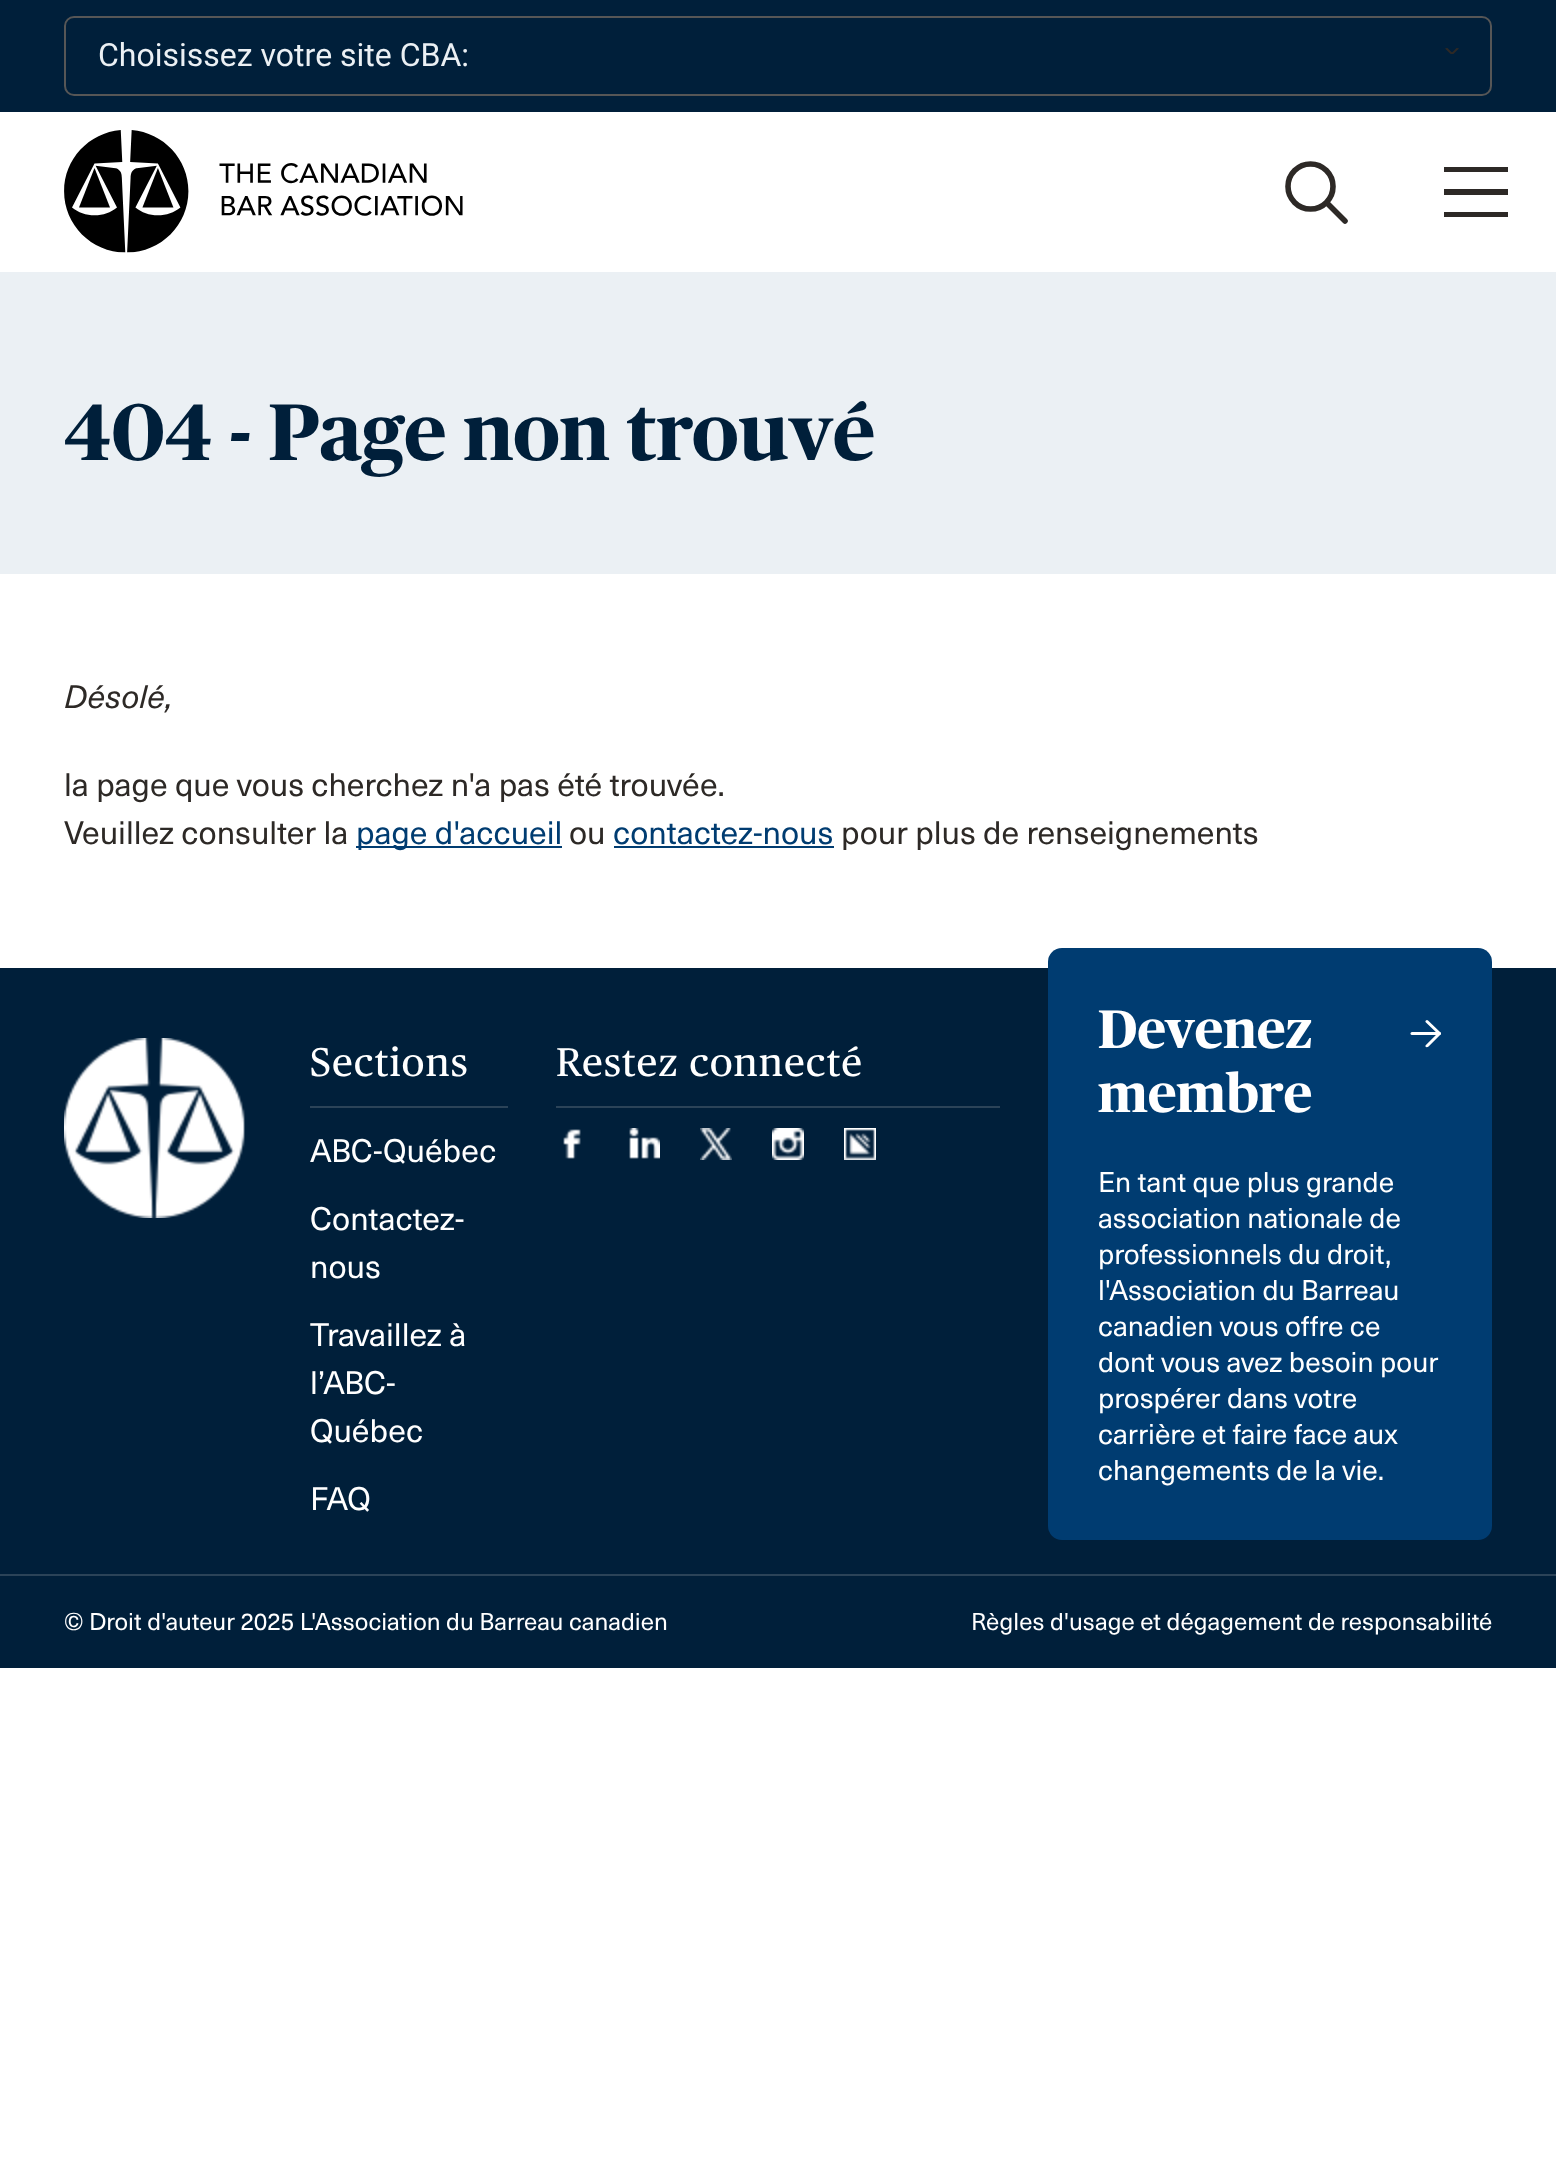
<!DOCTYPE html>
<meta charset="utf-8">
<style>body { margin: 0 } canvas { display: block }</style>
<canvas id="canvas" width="1556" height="2165"></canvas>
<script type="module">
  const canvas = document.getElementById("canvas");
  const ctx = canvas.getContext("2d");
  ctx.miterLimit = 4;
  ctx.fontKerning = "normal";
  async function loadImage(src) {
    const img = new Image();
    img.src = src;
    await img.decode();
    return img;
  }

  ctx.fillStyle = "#ffffff";
  ctx.fillRect(0, 0, 1556, 2165);
  ctx.fillStyle = "#001f3a";
  ctx.fillRect(0, 0, 1556, 112);
  ctx.beginPath();
  ctx.roundRect(65, 17, 1426, 78, 9);
  ctx.strokeStyle = "#565656";
  ctx.lineWidth = 2;
  ctx.stroke();
  ctx.font = "32px Roboto";
  ctx.fillStyle = "#ebf0f4";
  ctx.fillText("Choisissez votre site CBA:", 98, 66);
  ctx.save();
  ctx.beginPath();
  ctx.roundRect(1444, 48, 16, 6, 3);
  ctx.clip();
  ctx.beginPath();
  ctx.moveTo(1458, 48);
  ctx.lineTo(1452, 54);
  ctx.lineTo(1446, 48);
  ctx.strokeStyle = "#2d2926";
  ctx.lineCap = "round";
  ctx.lineJoin = "round";
  ctx.stroke();
  ctx.restore();
  ctx.drawImage(await loadImage("img1.png"), 64, 130, 399, 123);
  ctx.beginPath();
  ctx.arc(1310.5, 186.5, 22.5, 0, Math.PI * 2);
  ctx.strokeStyle = "#2d2926";
  ctx.lineWidth = 5.6;
  ctx.stroke();
  ctx.beginPath();
  ctx.moveTo(1345, 221);
  ctx.lineTo(1327, 203);
  ctx.lineCap = "round";
  ctx.lineJoin = "round";
  ctx.stroke();
  ctx.fillStyle = "#2d2926";
  ctx.fillRect(1444, 167, 64, 5);
  ctx.fillRect(1444, 189, 64, 6);
  ctx.fillRect(1444, 212, 64, 5);
  ctx.fillStyle = "#ebf0f4";
  ctx.fillRect(0, 272, 1556, 302);
  ctx.font = "bold 80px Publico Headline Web";
  ctx.fillStyle = "#001f3a";
  ctx.fillText("404 - Page non trouvé", 64, 460);
  ctx.font = "italic 32px 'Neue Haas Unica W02'";
  ctx.fillStyle = "#2d2926";
  ctx.fillText("Désolé,", 64, 708);
  ctx.font = "32px 'Neue Haas Unica W02'";
  ctx.fillText("la page que vous cherchez n'a pas été trouvée.", 64, 796);
  ctx.fillText("Veuillez consulter la", 64, 844);
  ctx.fillStyle = "#003c71";
  ctx.fillRect(356, 846, 206, 2);
  ctx.fillText("page d'accueil", 356, 844);
  ctx.fillStyle = "#2d2926";
  ctx.fillText("ou", 569, 844);
  ctx.fillStyle = "#003c71";
  ctx.fillText("contactez-nous", 613, 844);
  ctx.fillRect(614, 846, 220, 2);
  ctx.fillStyle = "#2d2926";
  ctx.fillText("pour plus de renseignements", 841, 844);
  ctx.fillStyle = "#001f3a";
  ctx.fillRect(0, 968, 1556, 700);
  ctx.drawImage(await loadImage("img2.png"), 64, 1038, 181, 180);
  ctx.letterSpacing = "1px";
  ctx.font = "40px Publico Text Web";
  ctx.fillStyle = "#ffffff";
  ctx.fillText("Sections", 310, 1076);
  ctx.fillStyle = "#2b4358";
  ctx.fillRect(310, 1106, 198, 2);
  ctx.letterSpacing = "0px";
  ctx.font = "32px 'Neue Haas Unica W02'";
  ctx.fillStyle = "#ffffff";
  ctx.fillText("ABC-Québec", 310, 1162);
  ctx.fillText("Contactez-", 310, 1230);
  ctx.fillText("nous", 310, 1278);
  ctx.fillText("Travaillez à", 310, 1346);
  ctx.fillText("l’ABC-", 310, 1394);
  ctx.fillText("Québec", 310, 1442);
  ctx.fillText("FAQ", 310, 1510);
  ctx.letterSpacing = "1px";
  ctx.font = "40px Publico Text Web";
  ctx.fillText("Restez connecté", 556, 1076);
  ctx.fillStyle = "#2b4358";
  ctx.fillRect(556, 1106, 444, 2);
  ctx.drawImage(await loadImage("img3.png"), 563, 1129, 18, 30);
  ctx.drawImage(await loadImage("img4.png"), 629, 1128, 31, 31);
  ctx.drawImage(await loadImage("img5.png"), 700, 1128, 32, 32);
  ctx.drawImage(await loadImage("img6.png"), 772, 1128, 32, 32);
  ctx.drawImage(await loadImage("img7.png"), 844, 1128, 32, 32);
  ctx.fillStyle = "#003c71";
  ctx.beginPath();
  ctx.roundRect(1048, 948, 444, 592, 14);
  ctx.fill();
  ctx.letterSpacing = "0px";
  ctx.font = "bold 54px Publico Headline Web";
  ctx.fillStyle = "#ffffff";
  ctx.fillText("Devenez", 1098, 1048);
  ctx.fillText("membre", 1098, 1112);
  ctx.beginPath();
  ctx.moveTo(1412, 1033.5);
  ctx.lineTo(1439.5, 1033.5);
  ctx.strokeStyle = "#ffffff";
  ctx.lineWidth = 3;
  ctx.stroke();
  ctx.save();
  ctx.beginPath();
  ctx.moveTo(1410, 1018);
  ctx.lineTo(1422, 1018);
  ctx.bezierCurveTo(1433, 1018, 1442, 1019, 1442, 1020);
  ctx.lineTo(1442, 1028);
  ctx.bezierCurveTo(1442, 1039, 1433, 1048, 1422, 1048);
  ctx.lineTo(1410, 1048);
  ctx.closePath();
  ctx.clip();
  ctx.beginPath();
  ctx.moveTo(1427, 1021.5);
  ctx.lineTo(1439.5, 1033.5);
  ctx.lineTo(1427, 1046);
  ctx.stroke();
  ctx.restore();
  ctx.font = "28px 'Neue Haas Unica W02'";
  ctx.fillText("En tant que plus grande", 1098, 1192);
  ctx.fillText("association nationale de", 1098, 1228);
  ctx.fillText("professionnels du droit,", 1098, 1264);
  ctx.fillText("l'Association du Barreau", 1098, 1300);
  ctx.fillText("canadien vous offre ce", 1098, 1336);
  ctx.fillText("dont vous avez besoin pour", 1098, 1372);
  ctx.fillText("prospérer dans votre", 1098, 1408);
  ctx.fillText("carrière et faire face aux", 1098, 1444);
  ctx.fillText("changements de la vie.", 1098, 1480);
  ctx.fillStyle = "#2b4358";
  ctx.fillRect(0, 1574, 1556, 2);
  ctx.font = "24px 'Neue Haas Unica W02'";
  ctx.fillStyle = "#ffffff";
  ctx.fillText("© Droit d'auteur 2025 L'Association du Barreau canadien", 64, 1630);
  ctx.fillText("Règles d'usage et dégagement de responsabilité", 971, 1630);
</script>
